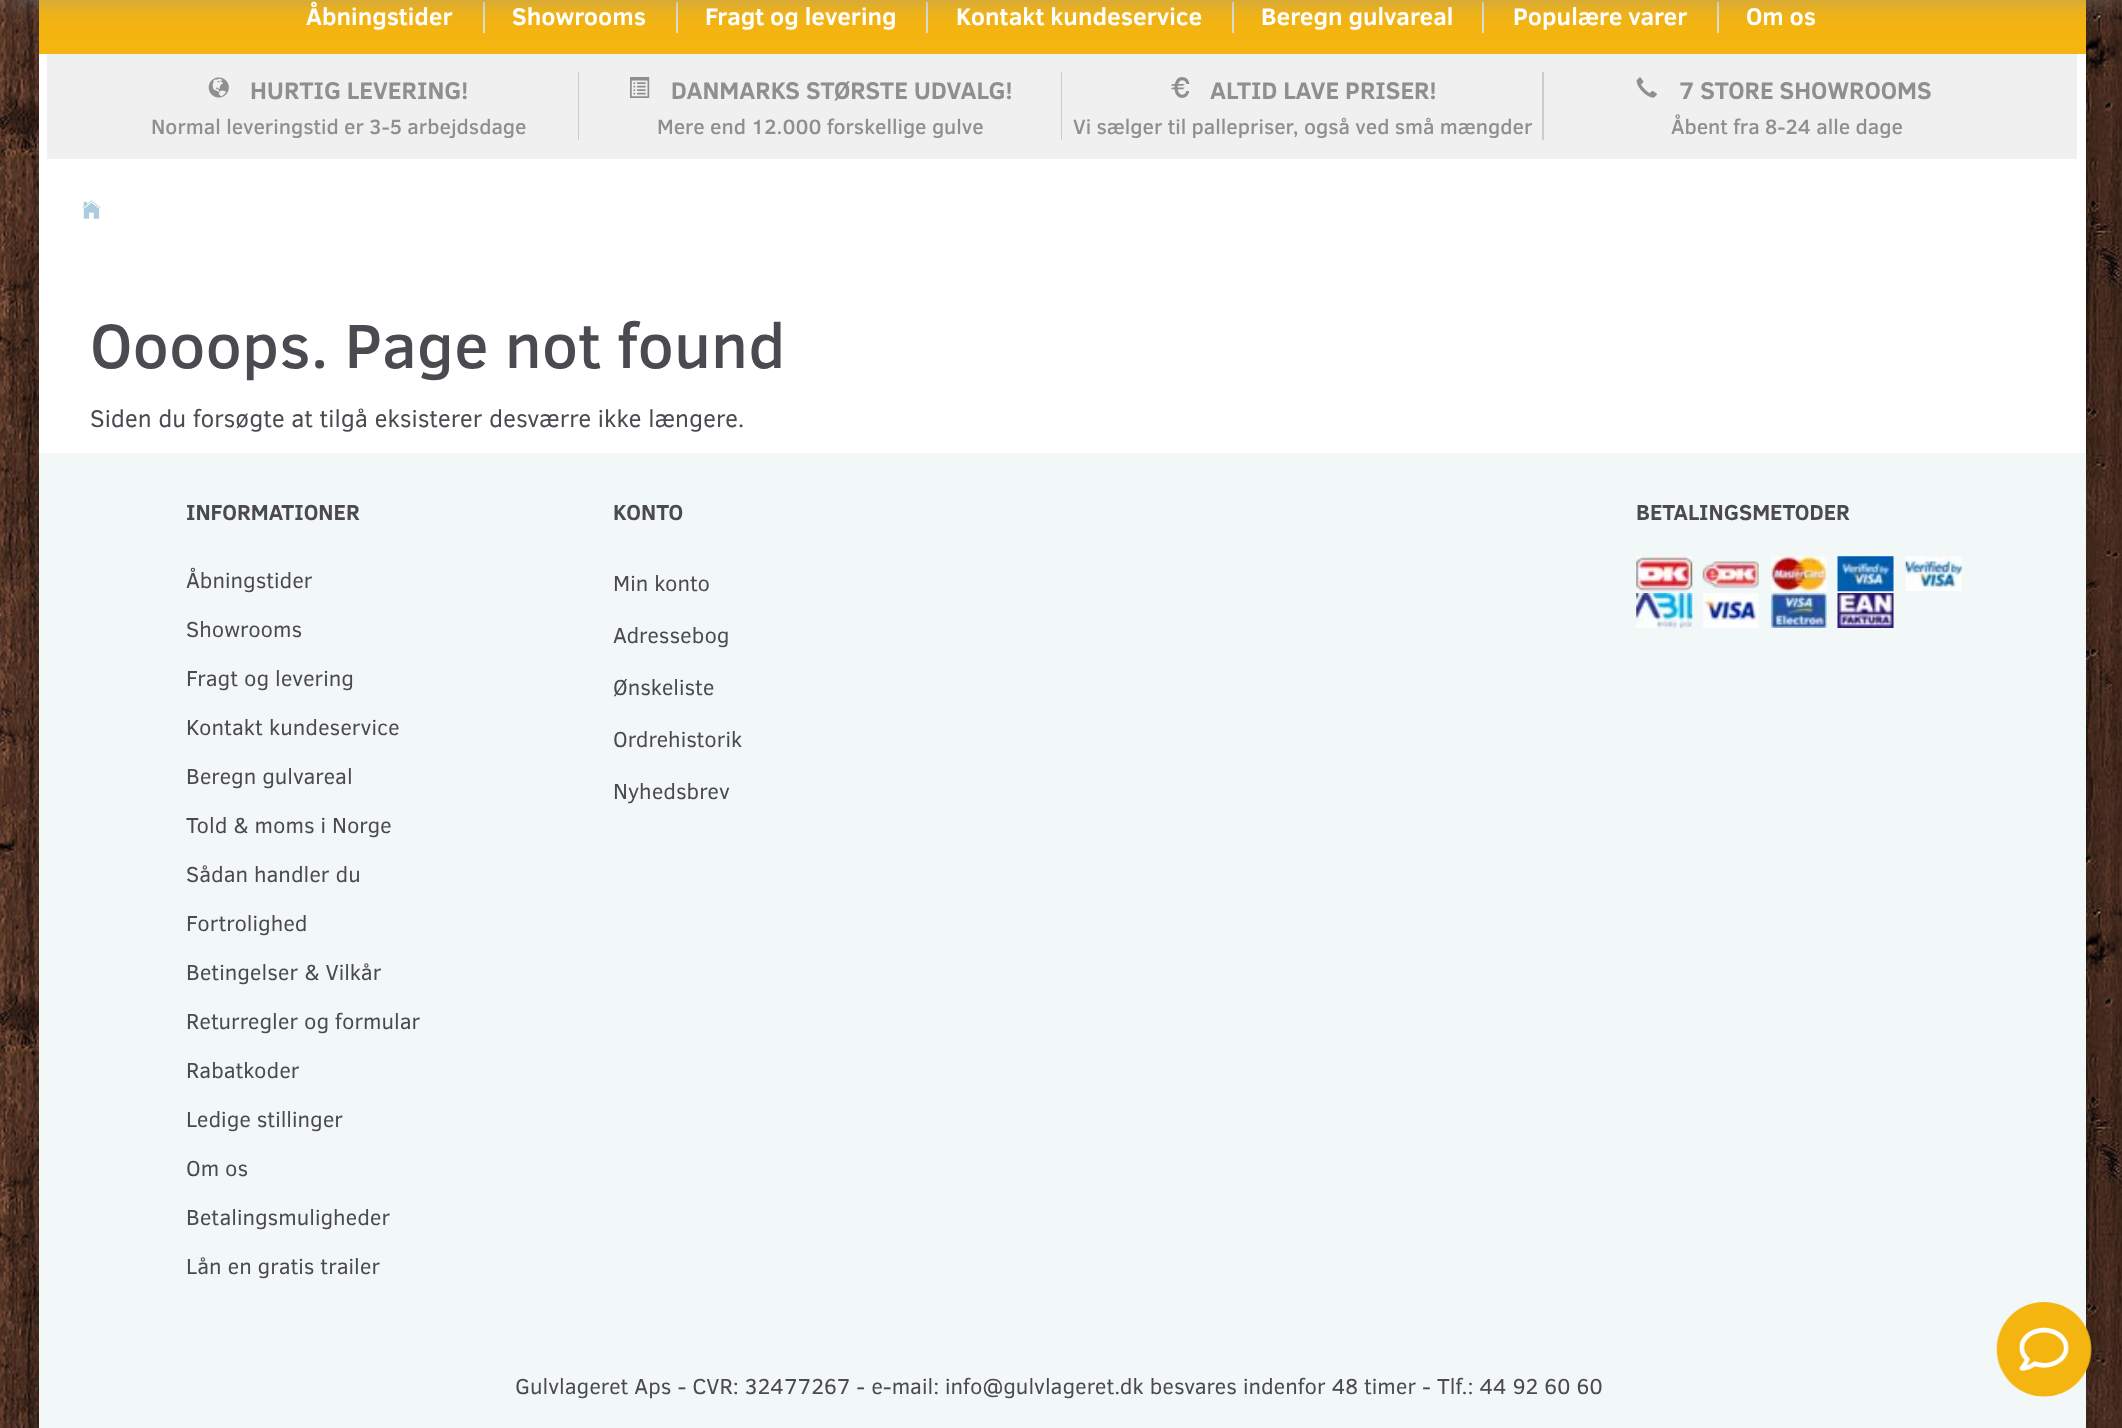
<!DOCTYPE html>
<meta charset="utf-8">
<style>body { margin: 0 } canvas { display: block }</style>
<canvas id="canvas" width="2122" height="1428"></canvas>
<script type="module">
  const canvas = document.getElementById("canvas");
  const ctx = canvas.getContext("2d");
  ctx.miterLimit = 4;
  ctx.fontKerning = "normal";
  async function loadImage(src) {
    const img = new Image();
    img.src = src;
    await img.decode();
    return img;
  }

  ctx.fillStyle = "#ffffff";
  ctx.fillRect(0, 0, 2122, 1428);
  ctx.drawImage(await loadImage("img1.png"), 0, 0, 2122, 1428);
  ctx.fillStyle = "#f5b511";
  ctx.fillRect(39, 0, 2047, 54);
  ctx.fillStyle = "#dddddd";
  ctx.fillRect(483, 2, 2, 31);
  ctx.fillRect(676, 2, 2, 31);
  ctx.fillRect(926, 2, 2, 31);
  ctx.fillRect(1232, 2, 2, 31);
  ctx.fillRect(1482, 2, 2, 31);
  ctx.fillRect(1717, 2, 2, 31);
  ctx.fillStyle = "#949494";
  ctx.filter = "blur(17.5px)";
  ctx.beginPath();
  ctx.rect(9, -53, 2105, 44);
  ctx.fill();
  ctx.filter = "none";
  ctx.font = "bold 24.5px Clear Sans";
  ctx.fillStyle = "#ffffff";
  ctx.fillText("Åbningstider", 306, 25);
  ctx.fillText("Showrooms", 512, 25);
  ctx.fillText("Fragt og levering", 705, 25);
  ctx.fillText("Kontakt kundeservice", 956, 25);
  ctx.fillText("Beregn gulvareal", 1261, 25);
  ctx.fillText("Populære varer", 1513, 25);
  ctx.fillText("Om os", 1746, 25);
  ctx.fillRect(39, 54, 2047, 399);
  ctx.fillStyle = "#f0f0f0";
  ctx.fillRect(47, 54, 2030, 105);
  ctx.drawImage(await loadImage("img2.png"), 208, 77, 21, 21);
  ctx.fillStyle = "#8f8f8f";
  ctx.fillText("HURTIG LEVERING!", 250, 99);
  ctx.font = "500 21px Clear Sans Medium";
  ctx.fillText("Normal leveringstid er 3-5 arbejdsdage", 151, 134);
  ctx.fillStyle = "#cccccc";
  ctx.fillRect(578, 72, 1, 68);
  ctx.drawImage(await loadImage("img3.png"), 630, 77, 20, 21);
  ctx.font = "bold 24.5px Clear Sans";
  ctx.fillStyle = "#8f8f8f";
  ctx.fillText("DANMARKS STØRSTE UDVALG!", 671, 99);
  ctx.font = "500 21px Clear Sans Medium";
  ctx.fillText("Mere end 12.000 forskellige gulve", 657, 134);
  ctx.fillStyle = "#cccccc";
  ctx.fillRect(1061, 72, 1, 68);
  ctx.drawImage(await loadImage("img4.png"), 1171, 77, 19, 21);
  ctx.font = "bold 24.5px Clear Sans";
  ctx.fillStyle = "#8f8f8f";
  ctx.fillText("ALTID LAVE PRISER!", 1210, 99);
  ctx.font = "500 21px Clear Sans Medium";
  ctx.fillText("Vi sælger til pallepriser, også ved små mængder", 1073, 134);
  ctx.fillStyle = "#cccccc";
  ctx.fillRect(1542, 72, 2, 68);
  ctx.drawImage(await loadImage("img5.png"), 1636, 77, 21, 21);
  ctx.font = "bold 24.5px Clear Sans";
  ctx.fillStyle = "#8f8f8f";
  ctx.fillText("7 STORE SHOWROOMS", 1679, 99);
  ctx.font = "500 21px Clear Sans Medium";
  ctx.fillText("Åbent fra 8-24 alle dage", 1671, 134);
  ctx.drawImage(await loadImage("img6.png"), 82, 200, 19, 19);
  ctx.font = "500 63.75px Clear Sans Medium";
  ctx.fillStyle = "#4b4a50";
  ctx.fillText("Oooops. Page not found", 90, 368);
  ctx.font = "24.5px Clear Sans";
  ctx.fillText("Siden du forsøgte at tilgå eksisterer desværre ikke længere.", 90, 427);
  ctx.fillStyle = "#f2f7f7";
  ctx.fillRect(39, 453, 2047, 975);
  ctx.font = "bold 22.05px Clear Sans";
  ctx.fillStyle = "#4b4a50";
  ctx.fillText("INFORMATIONER", 186, 520);
  ctx.font = "22.05px Clear Sans";
  ctx.fillText("Åbningstider", 186, 588);
  ctx.fillText("Showrooms", 186, 637);
  ctx.fillText("Fragt og levering", 186, 686);
  ctx.fillText("Kontakt kundeservice", 186, 735);
  ctx.fillText("Beregn gulvareal", 186, 784);
  ctx.fillText("Told & moms i Norge", 186, 833);
  ctx.fillText("Sådan handler du", 186, 882);
  ctx.fillText("Fortrolighed", 186, 931);
  ctx.fillText("Betingelser & Vilkår", 186, 980);
  ctx.fillText("Returregler og formular", 186, 1029);
  ctx.fillText("Rabatkoder", 186, 1078);
  ctx.fillText("Ledige stillinger", 186, 1127);
  ctx.fillText("Om os", 186, 1176);
  ctx.fillText("Betalingsmuligheder", 186, 1225);
  ctx.fillText("Lån en gratis trailer", 186, 1274);
  ctx.font = "bold 22.05px Clear Sans";
  ctx.fillText("KONTO", 613, 520);
  ctx.font = "22.05px Clear Sans";
  ctx.fillText("Min konto", 613, 591);
  ctx.fillText("Adressebog", 613, 643);
  ctx.fillText("Ønskeliste", 613, 695);
  ctx.fillText("Ordrehistorik", 613, 747);
  ctx.fillText("Nyhedsbrev", 613, 799);
  ctx.font = "bold 22.05px Clear Sans";
  ctx.fillText("BETALINGSMETODER", 1636, 520);
  ctx.drawImage(await loadImage("img7.png"), 1636, 556, 57, 36);
  ctx.drawImage(await loadImage("img8.png"), 1702, 561, 57, 28);
  ctx.drawImage(await loadImage("img9.png"), 1771, 556, 56, 36);
  ctx.drawImage(await loadImage("img10.png"), 1837, 556, 57, 36);
  ctx.drawImage(await loadImage("img11.png"), 1905, 556, 57, 35);
  ctx.drawImage(await loadImage("img12.png"), 1636, 593, 57, 35);
  ctx.drawImage(await loadImage("img13.png"), 1703, 593, 56, 35);
  ctx.drawImage(await loadImage("img14.png"), 1771, 593, 56, 35);
  ctx.drawImage(await loadImage("img15.png"), 1837, 593, 57, 35);
  ctx.font = "22.05px Clear Sans";
  ctx.fillText("Gulvlageret Aps - CVR: 32477267 - e-mail: info@gulvlageret.dk besvares indenfor 48 timer - Tlf.: 44 92 60 60", 515, 1394);
  ctx.drawImage(await loadImage("img16.png"), 1996, 1302, 96, 95);
</script>
